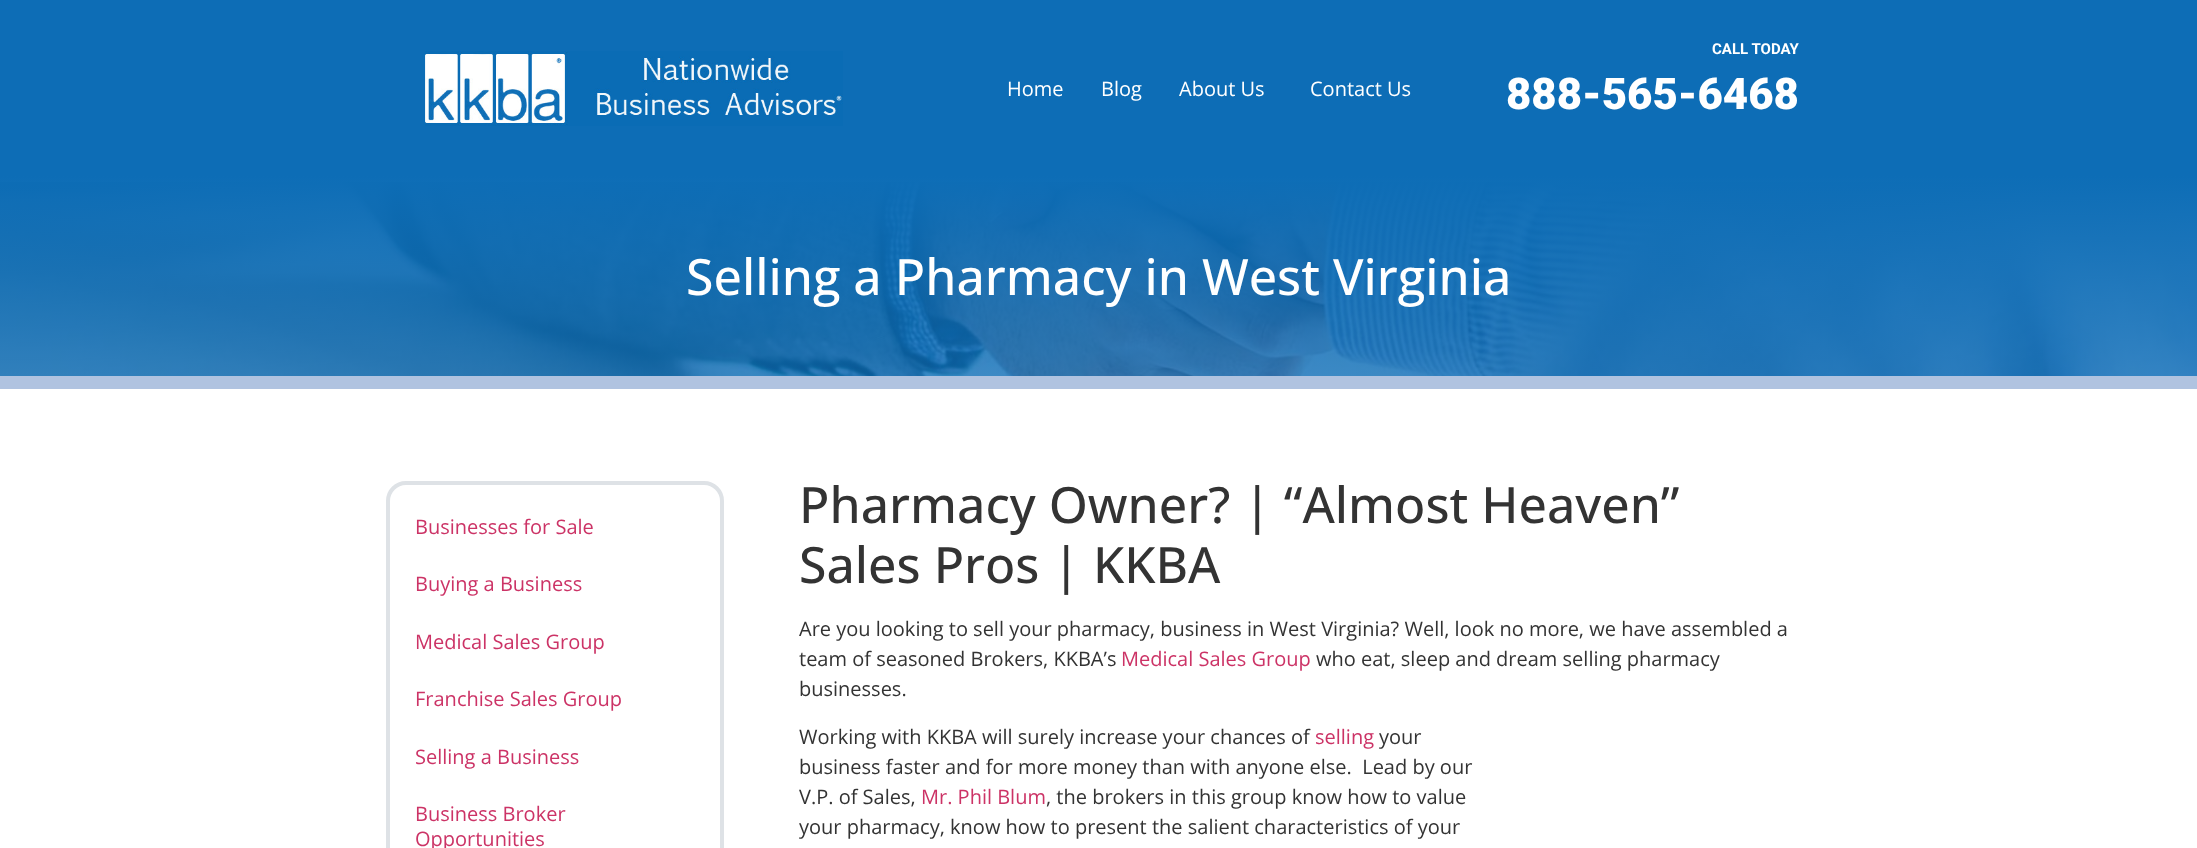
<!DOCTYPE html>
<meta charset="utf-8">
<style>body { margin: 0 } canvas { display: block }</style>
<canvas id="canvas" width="2197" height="848"></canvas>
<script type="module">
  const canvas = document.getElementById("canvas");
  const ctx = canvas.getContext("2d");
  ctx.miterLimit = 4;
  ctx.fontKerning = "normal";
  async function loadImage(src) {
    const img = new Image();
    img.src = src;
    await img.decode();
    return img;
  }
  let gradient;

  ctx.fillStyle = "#ffffff";
  ctx.fillRect(0, 0, 2197, 848);
  ctx.fillStyle = "#0d6db6";
  ctx.fillRect(0, 0, 2197, 176);
  ctx.drawImage(await loadImage("img1.png"), 425, 51, 418, 75);
  ctx.font = "20px Open Sans";
  ctx.fillStyle = "#ffffff";
  ctx.fillText("Home", 1007, 96);
  ctx.fillText("Blog", 1101, 96);
  ctx.fillText("About Us", 1179, 96);
  ctx.fillText("Contact Us", 1310, 96);
  ctx.font = "bold 15px Roboto";
  ctx.fillText("CALL TODAY", 1712, 54);
  ctx.font = "900 43.75px Roboto";
  ctx.fillText("888-565-6468", 1506, 109);
  ctx.drawImage(await loadImage("img2.png"), 0, 182, 2197, 194);
  gradient = ctx.createLinearGradient(1099, 176, 1099, 376);
  gradient.addColorStop(0, "#0d6db6");
  gradient.addColorStop(1, "rgba(13, 109, 182, 0.8)");
  ctx.fillStyle = gradient;
  ctx.fillRect(0, 176, 2197, 200);
  ctx.font = "500 50px Open Sans";
  ctx.fillStyle = "#ffffff";
  ctx.fillText("Selling a Pharmacy in West Virginia", 686, 295);
  ctx.fillStyle = "#b0c3e0";
  ctx.fillRect(0, 376, 2197, 13);
  ctx.beginPath();
  ctx.roundRect(388, 483, 334, 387, 18);
  ctx.strokeStyle = "#dee2e6";
  ctx.lineWidth = 4;
  ctx.stroke();
  ctx.font = "20px Open Sans";
  ctx.fillStyle = "#cc3366";
  ctx.fillText("Businesses for Sale", 415, 534);
  ctx.fillText("Buying a Business", 415, 591);
  ctx.fillText("Medical Sales Group", 415, 649);
  ctx.fillText("Franchise Sales Group", 415, 706);
  ctx.fillText("Selling a Business", 415, 764);
  ctx.fillText("Business Broker", 415, 821);
  ctx.fillText("Opportunities", 415, 846);
  ctx.font = "500 50px Open Sans";
  ctx.fillStyle = "#333333";
  ctx.fillText("Pharmacy Owner? | “Almost Heaven”", 799, 523);
  ctx.fillText("Sales Pros | KKBA", 799, 583);
  ctx.font = "20px Open Sans";
  ctx.fillText("Are you looking to sell your pharmacy, business in West Virginia? Well, look no more, we have assembled a", 799, 636);
  ctx.fillText("team of seasoned Brokers, KKBA’s", 799, 666);
  ctx.fillStyle = "#cc3366";
  ctx.fillText("Medical Sales Group", 1121, 666);
  ctx.fillStyle = "#333333";
  ctx.fillText("who eat, sleep and dream selling pharmacy", 1316, 666);
  ctx.fillText("businesses.", 799, 696);
  ctx.fillText("Working with KKBA will surely increase your chances of", 799, 744);
  ctx.fillStyle = "#cc3366";
  ctx.fillText("selling", 1315, 744);
  ctx.fillStyle = "#333333";
  ctx.fillText("your", 1379, 744);
  ctx.fillText("business faster and for more money than with anyone else.  Lead by our", 799, 774);
  ctx.fillText("V.P. of Sales,", 799, 804);
  ctx.fillStyle = "#cc3366";
  ctx.fillText("Mr. Phil Blum", 921, 804);
  ctx.fillStyle = "#333333";
  ctx.fillText(", the brokers in this group know how to value", 1046, 804);
  ctx.fillText("your pharmacy, know how to present the salient characteristics of your", 799, 834);
</script>
